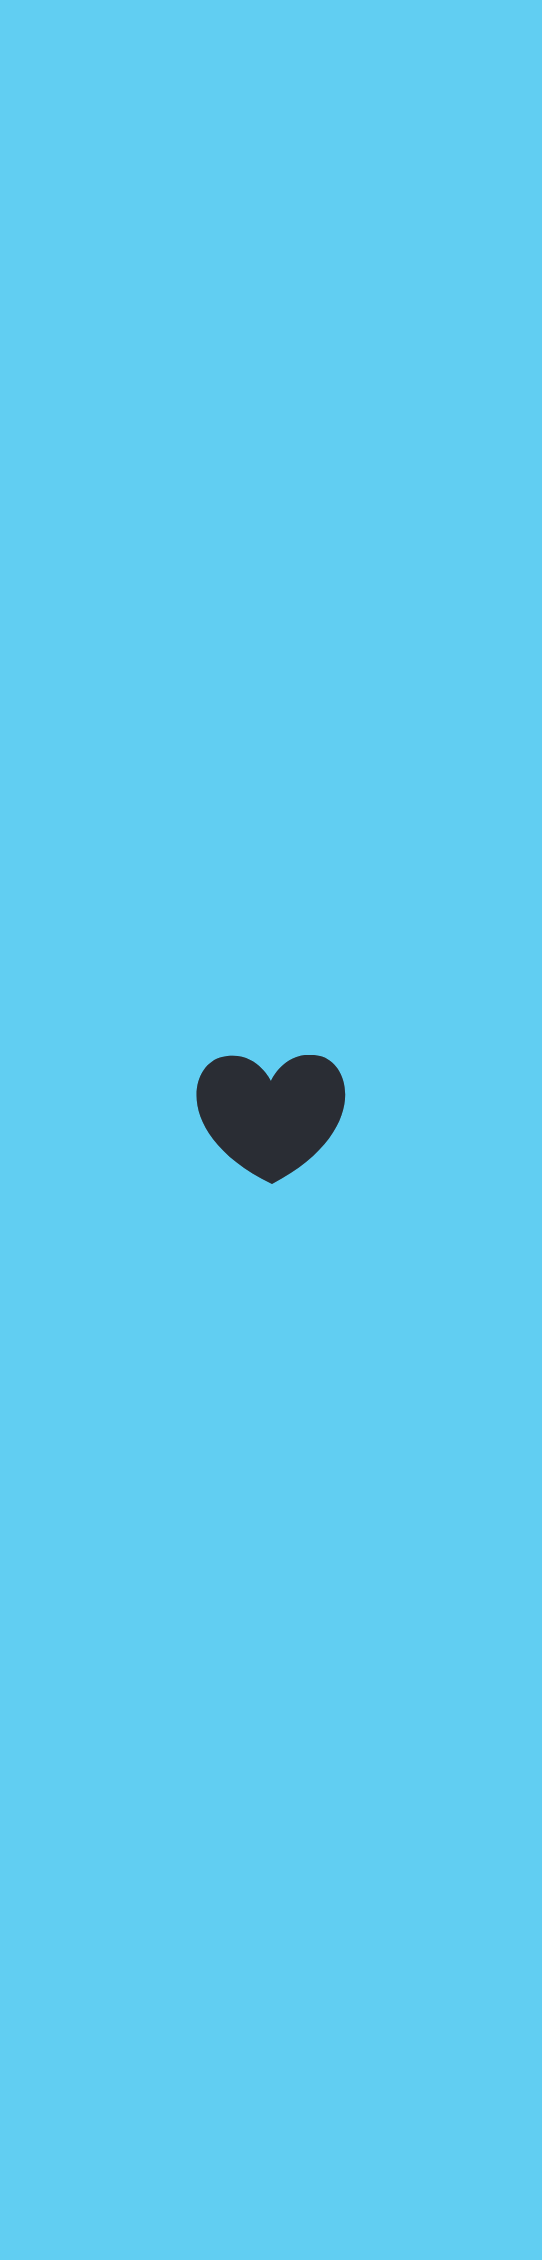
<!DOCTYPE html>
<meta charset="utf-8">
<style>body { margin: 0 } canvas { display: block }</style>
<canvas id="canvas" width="542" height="2260"></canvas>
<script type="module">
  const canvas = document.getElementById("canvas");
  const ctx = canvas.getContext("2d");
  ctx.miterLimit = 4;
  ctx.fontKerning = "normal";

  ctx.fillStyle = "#61cef2";
  ctx.fillRect(0, 0, 542, 2260);
  ctx.save();
  ctx.beginPath();
  ctx.rect(196, 1055, 150, 129);
  ctx.clip();
  ctx.fillStyle = "#2b2e34";
  ctx.beginPath();
  ctx.moveTo(271, 1081);
  ctx.bezierCurveTo(271, 1081, 256, 1049, 222, 1057);
  ctx.bezierCurveTo(188, 1065, 174, 1136, 272, 1184);
  ctx.bezierCurveTo(368, 1134, 353, 1064, 320, 1056);
  ctx.bezierCurveTo(285, 1048, 271, 1081, 271, 1081);
  ctx.fill();
  ctx.fillStyle = "rgba(43, 46, 52, 0.4)";
  ctx.beginPath();
  ctx.moveTo(271, 1081);
  ctx.bezierCurveTo(271, 1081, 256, 1049, 222, 1057);
  ctx.bezierCurveTo(188, 1065, 174, 1136, 272, 1184);
  ctx.bezierCurveTo(368, 1134, 353, 1064, 320, 1056);
  ctx.bezierCurveTo(285, 1048, 271, 1081, 271, 1081);
  ctx.fill();
  ctx.restore();
</script>
